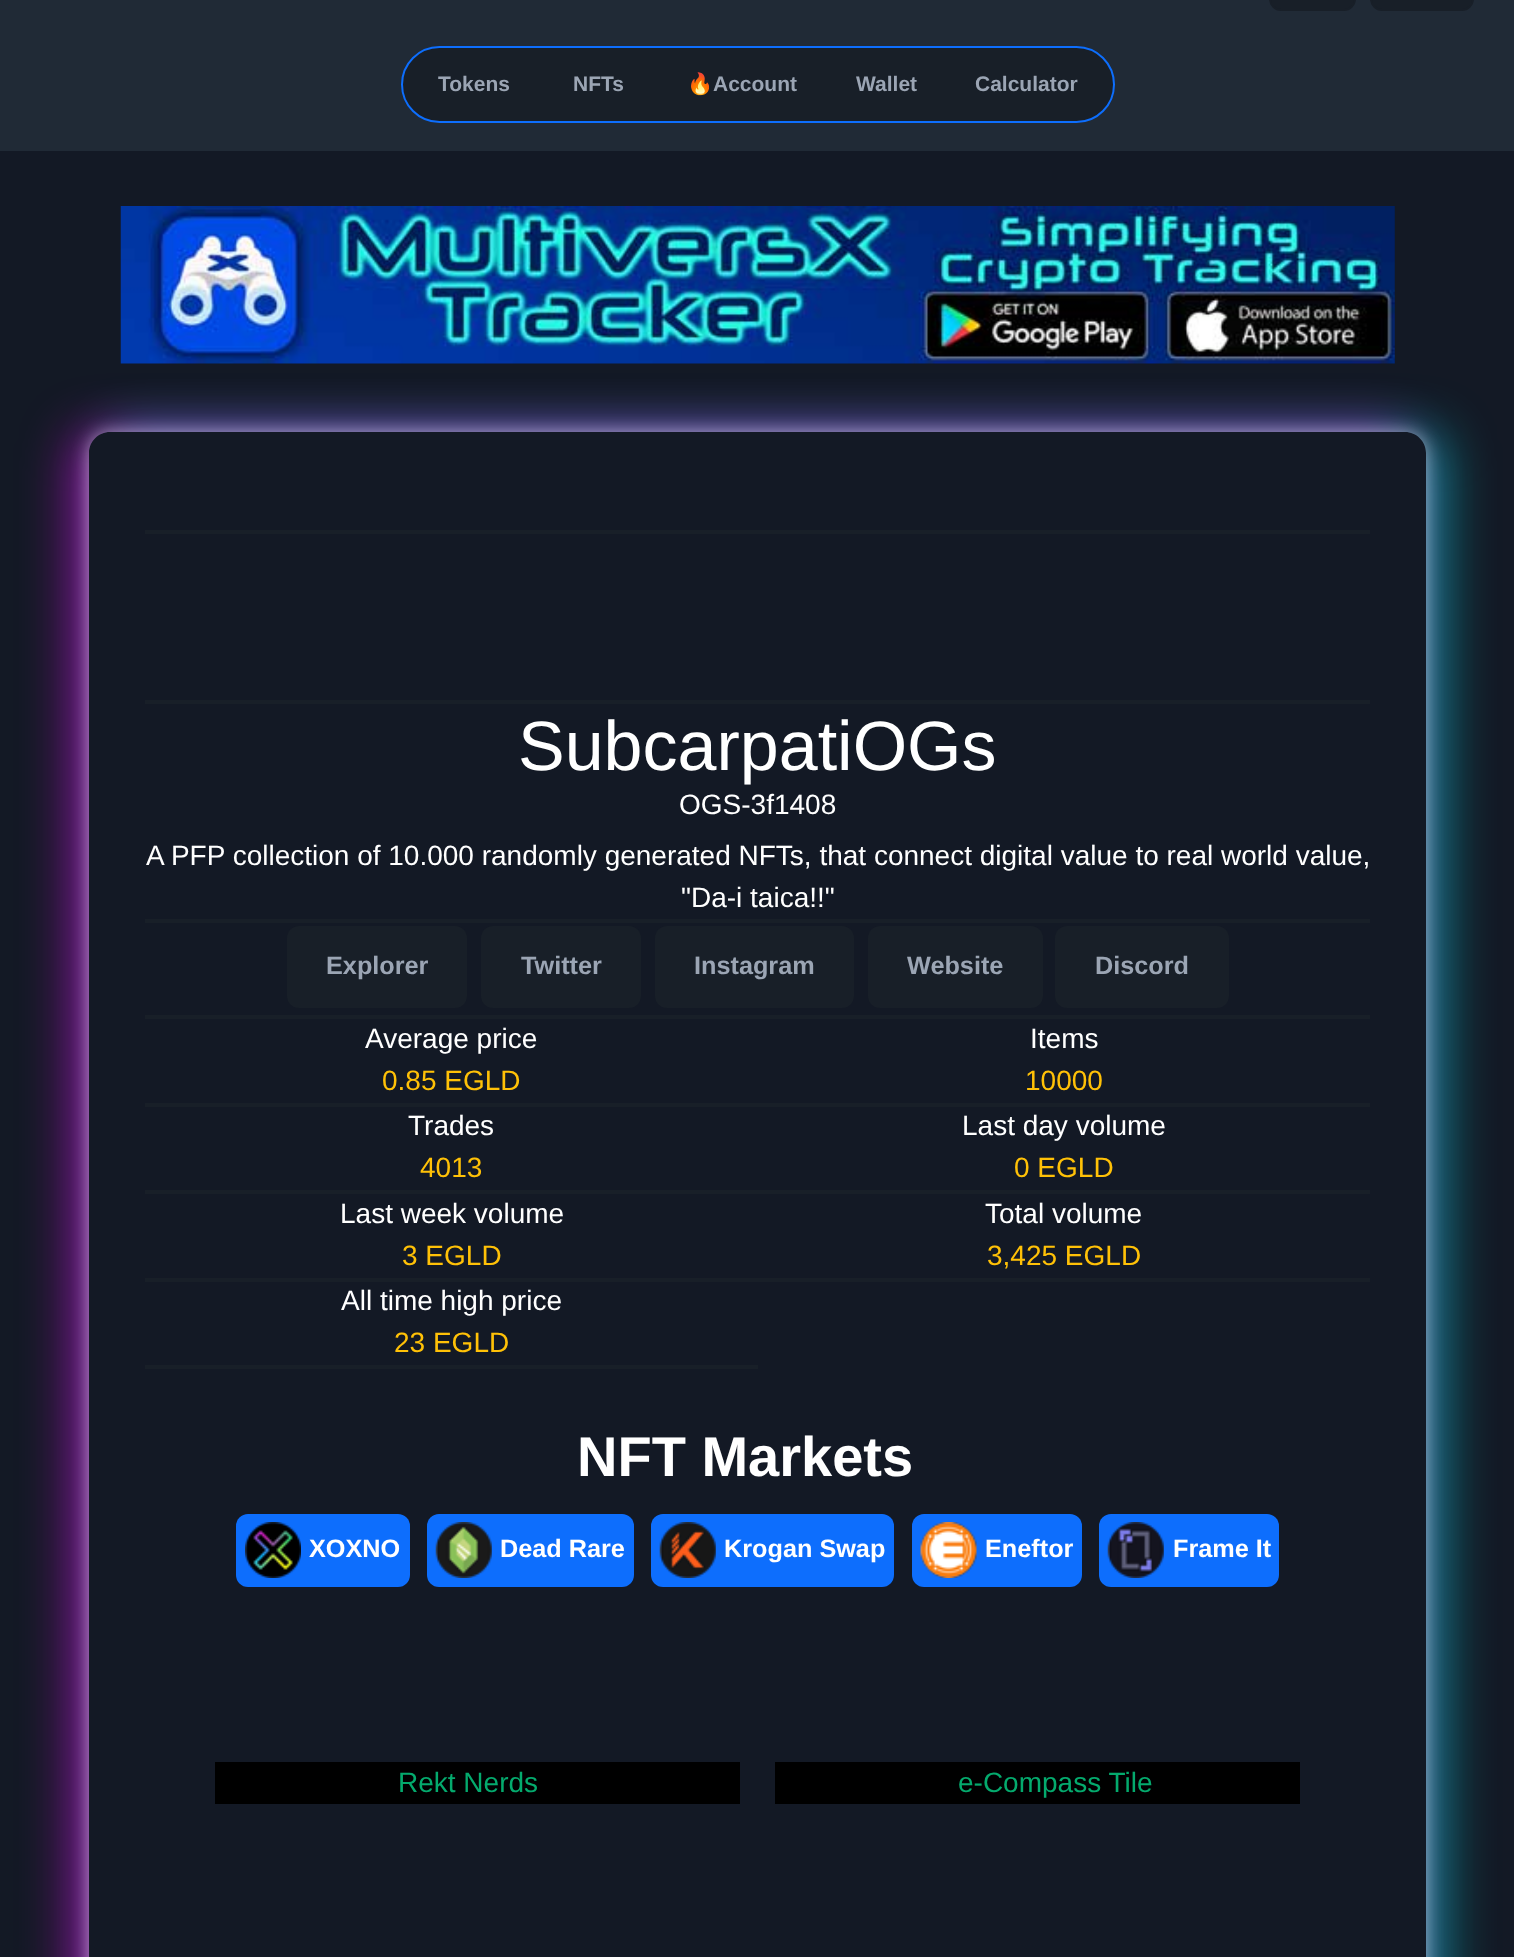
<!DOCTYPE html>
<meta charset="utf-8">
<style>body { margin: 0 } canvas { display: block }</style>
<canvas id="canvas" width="1514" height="1957"></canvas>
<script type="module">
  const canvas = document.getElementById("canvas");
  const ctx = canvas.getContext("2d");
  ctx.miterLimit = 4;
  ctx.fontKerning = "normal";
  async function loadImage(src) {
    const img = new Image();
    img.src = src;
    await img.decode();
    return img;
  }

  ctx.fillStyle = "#131925";
  ctx.fillRect(0, 0, 1514, 1957);
  ctx.fillStyle = "#202a36";
  ctx.fillRect(0, 0, 1514, 151);
  ctx.fillStyle = "#181f28";
  ctx.beginPath();
  ctx.roundRect(1270, -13, 85, 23, 11);
  ctx.fill();
  ctx.strokeStyle = "#181f28";
  ctx.lineWidth = 2;
  ctx.stroke();
  ctx.beginPath();
  ctx.roundRect(1371, -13, 102, 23, 11);
  ctx.fill();
  ctx.stroke();
  ctx.beginPath();
  ctx.roundRect(402, 47, 712, 75, 37.5);
  ctx.fill();
  ctx.strokeStyle = "#0d6efd";
  ctx.stroke();
  ctx.font = "bold 21px Liberation Sans";
  ctx.fillStyle = "#9ba5b4";
  ctx.fillText("Tokens", 438, 91);
  ctx.fillText("NFTs", 573, 91);
  ctx.font = "bold 21px Noto Color Emoji";
  ctx.fillText("🔥", 687, 91);
  ctx.font = "bold 21px Liberation Sans";
  ctx.fillText("Account", 713, 91);
  ctx.fillText("Wallet", 856, 91);
  ctx.fillText("Calculator", 975, 91);
  ctx.drawImage(await loadImage("img1.png"), 120, 206, 1275, 158);
  ctx.save();
  ctx.beginPath();
  ctx.moveTo(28, 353);
  ctx.lineTo(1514, 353);
  ctx.lineTo(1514, 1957);
  ctx.lineTo(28, 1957);
  ctx.closePath();
  ctx.moveTo(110, 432);
  ctx.lineTo(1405, 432);
  ctx.bezierCurveTo(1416.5, 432, 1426, 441.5, 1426, 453);
  ctx.lineTo(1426, 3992);
  ctx.bezierCurveTo(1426, 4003.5, 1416.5, 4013, 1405, 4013);
  ctx.lineTo(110, 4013);
  ctx.bezierCurveTo(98.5, 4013, 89, 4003.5, 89, 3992);
  ctx.lineTo(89, 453);
  ctx.bezierCurveTo(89, 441.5, 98.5, 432, 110, 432);
  ctx.closePath();
  ctx.clip("evenodd");
  ctx.fillStyle = "rgba(0, 255, 255, 0.5)";
  ctx.filter = "blur(26px)";
  ctx.beginPath();
  ctx.roundRect(107, 432, 1337, 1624, 21);
  ctx.fill();
  ctx.filter = "none";
  ctx.restore();
  ctx.save();
  ctx.beginPath();
  ctx.moveTo(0, 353);
  ctx.lineTo(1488, 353);
  ctx.lineTo(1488, 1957);
  ctx.lineTo(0, 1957);
  ctx.closePath();
  ctx.moveTo(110, 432);
  ctx.lineTo(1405, 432);
  ctx.bezierCurveTo(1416.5, 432, 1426, 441.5, 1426, 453);
  ctx.lineTo(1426, 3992);
  ctx.bezierCurveTo(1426, 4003.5, 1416.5, 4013, 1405, 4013);
  ctx.lineTo(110, 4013);
  ctx.bezierCurveTo(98.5, 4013, 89, 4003.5, 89, 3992);
  ctx.lineTo(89, 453);
  ctx.bezierCurveTo(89, 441.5, 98.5, 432, 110, 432);
  ctx.closePath();
  ctx.clip("evenodd");
  ctx.fillStyle = "rgba(255, 0, 255, 0.5)";
  ctx.filter = "blur(26px)";
  ctx.beginPath();
  ctx.roundRect(72, 432, 1337, 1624, 21);
  ctx.fill();
  ctx.filter = "none";
  ctx.restore();
  ctx.save();
  ctx.beginPath();
  ctx.moveTo(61, 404);
  ctx.lineTo(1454, 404);
  ctx.lineTo(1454, 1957);
  ctx.lineTo(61, 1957);
  ctx.closePath();
  ctx.moveTo(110, 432);
  ctx.lineTo(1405, 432);
  ctx.bezierCurveTo(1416.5, 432, 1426, 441.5, 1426, 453);
  ctx.lineTo(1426, 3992);
  ctx.bezierCurveTo(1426, 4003.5, 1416.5, 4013, 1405, 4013);
  ctx.lineTo(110, 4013);
  ctx.bezierCurveTo(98.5, 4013, 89, 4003.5, 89, 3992);
  ctx.lineTo(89, 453);
  ctx.bezierCurveTo(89, 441.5, 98.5, 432, 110, 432);
  ctx.closePath();
  ctx.clip("evenodd");
  ctx.fillStyle = "rgba(255, 255, 255, 0.5)";
  ctx.filter = "blur(9px)";
  ctx.beginPath();
  ctx.roundRect(89, 432, 1337, 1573, 21);
  ctx.fill();
  ctx.filter = "none";
  ctx.restore();
  ctx.fillStyle = "#181f28";
  ctx.fillRect(145, 530, 1225, 4);
  ctx.fillRect(145, 700, 1225, 4);
  ctx.font = "70px Liberation Sans";
  ctx.fillStyle = "#ffffff";
  ctx.fillText("SubcarpatiOGs", 518, 770);
  ctx.font = "28px Liberation Sans";
  ctx.fillText("OGS-3f1408", 679, 814);
  ctx.fillStyle = "#181f28";
  ctx.fillRect(145, 919, 1225, 4);
  ctx.fillStyle = "#ffffff";
  ctx.fillText("A PFP collection of 10.000 randomly generated NFTs, that connect digital value to real world value,", 146, 865);
  ctx.fillText("\"Da-i taica!!\"", 681, 907);
  ctx.fillStyle = "#181f28";
  ctx.fillRect(145, 1015, 1225, 4);
  ctx.beginPath();
  ctx.roundRect(287, 926, 180, 82, 12);
  ctx.fill();
  ctx.font = "bold 25.25px Liberation Sans";
  ctx.fillStyle = "#9ba5b4";
  ctx.fillText("Explorer", 326, 974);
  ctx.fillStyle = "#181f28";
  ctx.beginPath();
  ctx.roundRect(481, 926, 160, 82, 12);
  ctx.fill();
  ctx.fillStyle = "#9ba5b4";
  ctx.fillText("Twitter", 521, 974);
  ctx.fillStyle = "#181f28";
  ctx.beginPath();
  ctx.roundRect(655, 926, 199, 82, 12);
  ctx.fill();
  ctx.fillStyle = "#9ba5b4";
  ctx.fillText("Instagram", 694, 974);
  ctx.fillStyle = "#181f28";
  ctx.beginPath();
  ctx.roundRect(868, 926, 175, 82, 12);
  ctx.fill();
  ctx.fillStyle = "#9ba5b4";
  ctx.fillText("Website", 907, 974);
  ctx.fillStyle = "#181f28";
  ctx.beginPath();
  ctx.roundRect(1055, 926, 174, 82, 12);
  ctx.fill();
  ctx.fillStyle = "#9ba5b4";
  ctx.fillText("Discord", 1095, 974);
  ctx.fillStyle = "#181f28";
  ctx.fillRect(145, 1103, 1225, 4);
  ctx.font = "28px Liberation Sans";
  ctx.fillStyle = "#ffffff";
  ctx.fillText("Average price", 365, 1048);
  ctx.fillStyle = "#ffc107";
  ctx.fillText("0.85 EGLD", 382, 1090);
  ctx.fillStyle = "#ffffff";
  ctx.fillText("Items", 1030, 1048);
  ctx.fillStyle = "#ffc107";
  ctx.fillText("10000", 1025, 1090);
  ctx.fillStyle = "#181f28";
  ctx.fillRect(145, 1190, 1225, 4);
  ctx.fillStyle = "#ffffff";
  ctx.fillText("Trades", 408, 1135);
  ctx.fillStyle = "#ffc107";
  ctx.fillText("4013", 420, 1177);
  ctx.fillStyle = "#ffffff";
  ctx.fillText("Last day volume", 962, 1135);
  ctx.fillStyle = "#ffc107";
  ctx.fillText("0 EGLD", 1014, 1177);
  ctx.fillStyle = "#181f28";
  ctx.fillRect(145, 1278, 1225, 4);
  ctx.fillStyle = "#ffffff";
  ctx.fillText("Last week volume", 340, 1223);
  ctx.fillStyle = "#ffc107";
  ctx.fillText("3 EGLD", 402, 1265);
  ctx.fillStyle = "#ffffff";
  ctx.fillText("Total volume", 985, 1223);
  ctx.fillStyle = "#ffc107";
  ctx.fillText("3,425 EGLD", 987, 1265);
  ctx.fillStyle = "#181f28";
  ctx.fillRect(145, 1365, 613, 4);
  ctx.fillStyle = "#ffffff";
  ctx.fillText("All time high price", 341, 1310);
  ctx.fillStyle = "#ffc107";
  ctx.fillText("23 EGLD", 394, 1352);
  ctx.font = "bold 56px Liberation Sans";
  ctx.fillStyle = "#ffffff";
  ctx.fillText("NFT Markets", 577, 1476);
  ctx.fillStyle = "#0d6efd";
  ctx.beginPath();
  ctx.roundRect(236, 1514, 174, 73, 12);
  ctx.fill();
  ctx.drawImage(await loadImage("img2.png"), 245, 1522, 56, 56);
  ctx.font = "bold 25.25px Liberation Sans";
  ctx.fillStyle = "#ffffff";
  ctx.fillText("XOXNO", 309, 1557);
  ctx.fillStyle = "#0d6efd";
  ctx.beginPath();
  ctx.roundRect(427, 1514, 207, 73, 12);
  ctx.fill();
  ctx.drawImage(await loadImage("img3.png"), 435, 1522, 57, 56);
  ctx.fillStyle = "#ffffff";
  ctx.fillText("Dead Rare", 500, 1557);
  ctx.fillStyle = "#0d6efd";
  ctx.beginPath();
  ctx.roundRect(651, 1514, 243, 73, 12);
  ctx.fill();
  ctx.drawImage(await loadImage("img4.png"), 659, 1522, 57, 56);
  ctx.fillStyle = "#ffffff";
  ctx.fillText("Krogan Swap", 724, 1557);
  ctx.fillStyle = "#0d6efd";
  ctx.beginPath();
  ctx.roundRect(912, 1514, 170, 73, 12);
  ctx.fill();
  ctx.drawImage(await loadImage("img5.png"), 920, 1522, 57, 56);
  ctx.fillStyle = "#ffffff";
  ctx.fillText("Eneftor", 985, 1557);
  ctx.fillStyle = "#0d6efd";
  ctx.beginPath();
  ctx.roundRect(1099, 1514, 180, 73, 12);
  ctx.fill();
  ctx.drawImage(await loadImage("img6.png"), 1107, 1522, 57, 56);
  ctx.fillStyle = "#ffffff";
  ctx.fillText("Frame It", 1173, 1557);
  ctx.fillStyle = "#000000";
  ctx.fillRect(215, 1762, 525, 42);
  ctx.font = "28px Liberation Sans";
  ctx.fillStyle = "#04aa6d";
  ctx.fillText("Rekt Nerds", 398, 1792);
  ctx.fillStyle = "#000000";
  ctx.fillRect(775, 1762, 525, 42);
  ctx.fillStyle = "#04aa6d";
  ctx.fillText("e-Compass Tile", 958, 1792);
</script>
